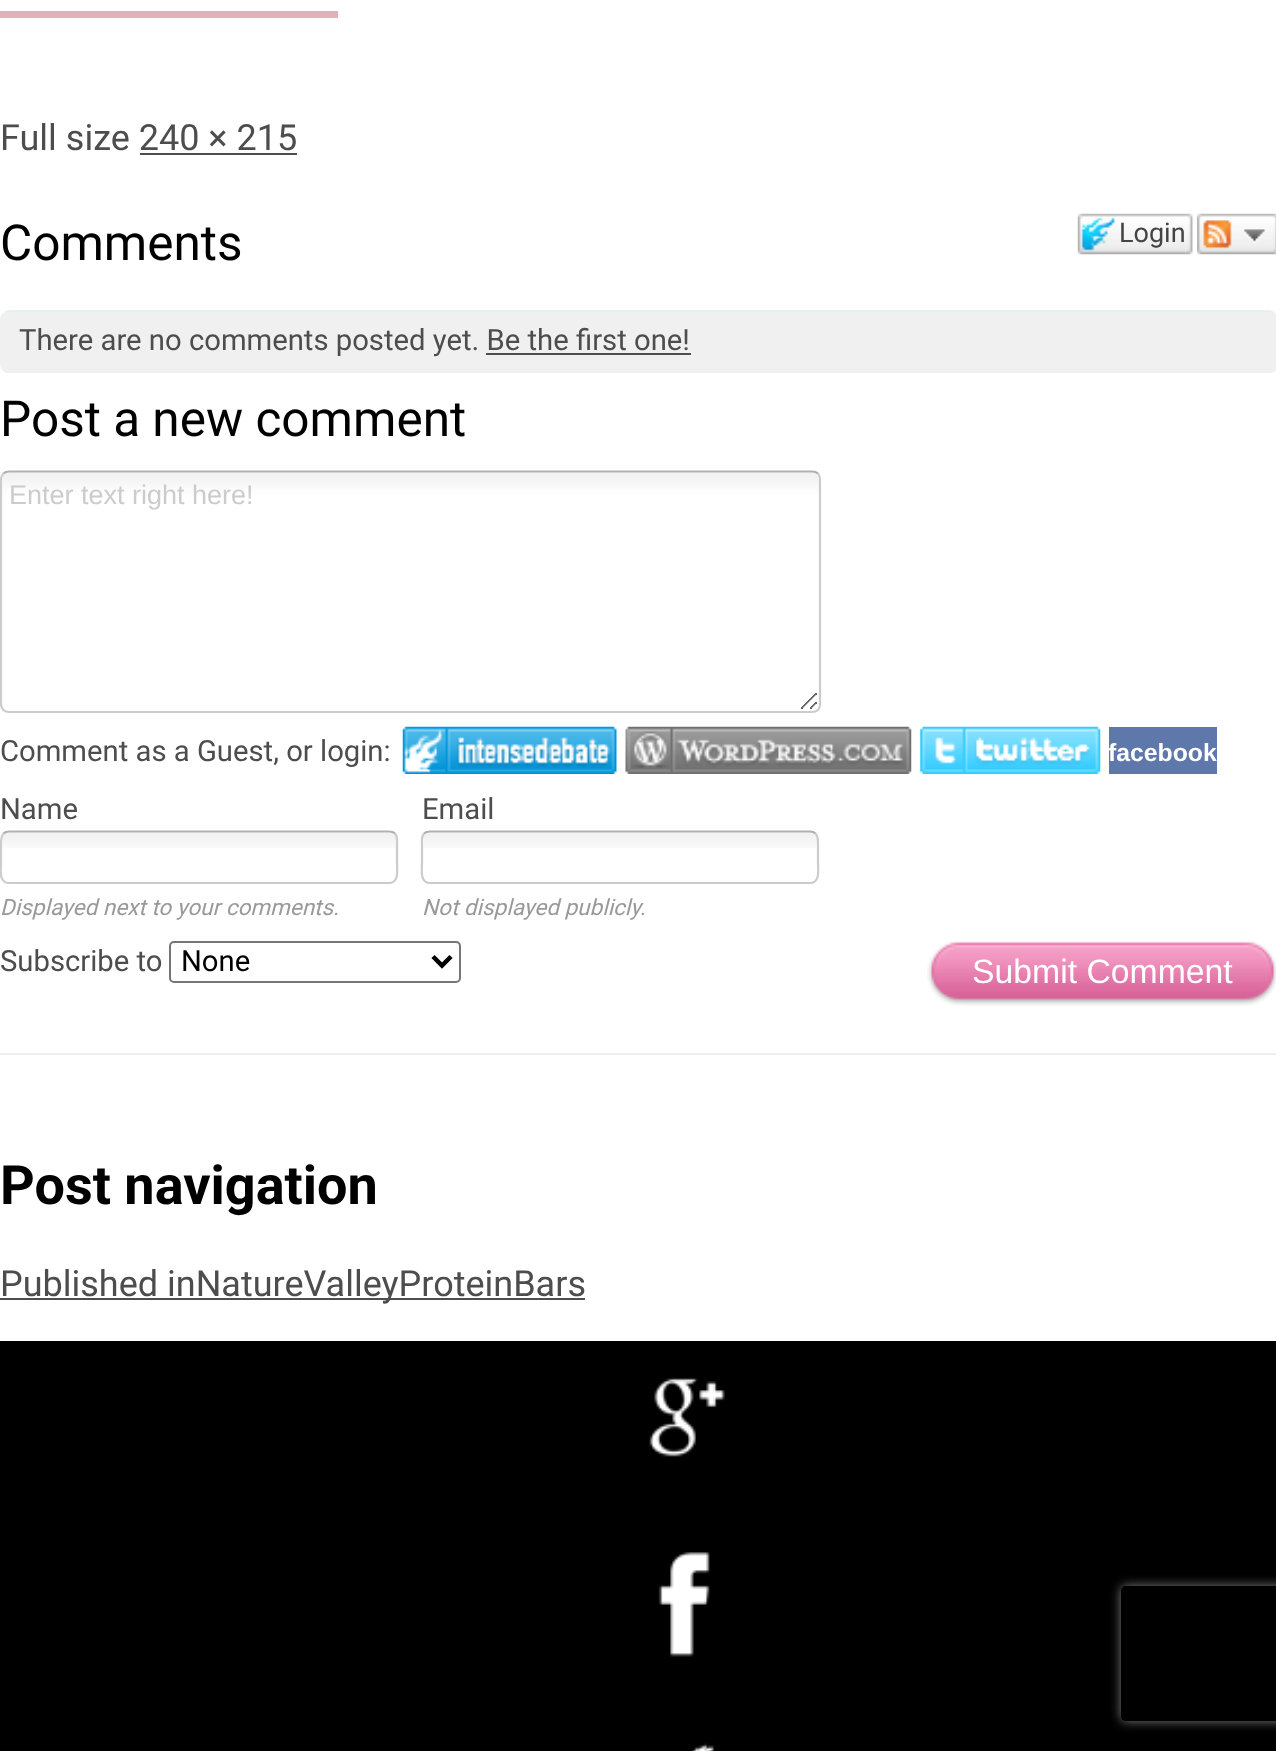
<!DOCTYPE html>
<meta charset="utf-8">
<style>body { margin: 0 } canvas { display: block }</style>
<canvas id="canvas" width="1276" height="1751"></canvas>
<script type="module">
  const canvas = document.getElementById("canvas");
  const ctx = canvas.getContext("2d");
  ctx.miterLimit = 4;
  ctx.fontKerning = "normal";
  async function loadImage(src) {
    const img = new Image();
    img.src = src;
    await img.decode();
    return img;
  }

  ctx.fillStyle = "#ffffff";
  ctx.fillRect(0, 0, 1276, 1751);
  ctx.fillStyle = "#e3afb9";
  ctx.fillRect(0, 11, 338, 7);
  ctx.font = "36px Roboto";
  ctx.fillStyle = "#4d4d4d";
  ctx.fillText("Full size 240 × 215", 0, 150);
  ctx.fillRect(140, 153, 157, 2);
  ctx.font = "49.5px Roboto";
  ctx.fillStyle = "#000000";
  ctx.fillText("Comments", 0, 260);
  ctx.drawImage(await loadImage("img1.png"), 1077, 213, 109, 42);
  ctx.font = "27px Roboto";
  ctx.fillStyle = "#444444";
  ctx.fillText("Login", 1119, 242);
  ctx.drawImage(await loadImage("img2.png"), 1185, 213, 8, 42);
  ctx.drawImage(await loadImage("img3.png"), 1197, 213, 79, 42);
  ctx.drawImage(await loadImage("img4.png"), 0, 310, 1276, 63);
  ctx.font = "29.25px Roboto";
  ctx.fillStyle = "#4d4d4d";
  ctx.fillText("There are no comments posted yet. Be the first one!", 19, 350);
  ctx.fillRect(486, 353, 205, 2);
  ctx.font = "49.5px Roboto";
  ctx.fillStyle = "#000000";
  ctx.fillText("Post a new comment", 0, 436);
  ctx.drawImage(await loadImage("img5.png"), 2, 472, 819, 237);
  ctx.beginPath();
  ctx.moveTo(3.5, 473.5);
  ctx.bezierCurveTo(5, 472, 7, 471.5, 9, 471.5);
  ctx.lineTo(812, 471.5);
  ctx.bezierCurveTo(814.5, 471.5, 816.5, 472, 818, 473.5);
  ctx.strokeStyle = "#b0b0b0";
  ctx.lineWidth = 2.2;
  ctx.stroke();
  ctx.beginPath();
  ctx.moveTo(818, 473.5);
  ctx.bezierCurveTo(819.5, 475, 820, 477, 820, 479);
  ctx.lineTo(820, 704);
  ctx.bezierCurveTo(820, 706.5, 819.5, 708.5, 818, 710);
  ctx.bezierCurveTo(816.5, 711.5, 814.5, 712, 812, 712);
  ctx.lineTo(9, 712);
  ctx.bezierCurveTo(7, 712, 5, 711.5, 3.5, 710);
  ctx.bezierCurveTo(2, 708.5, 1, 706.5, 1, 704);
  ctx.lineTo(1, 479);
  ctx.bezierCurveTo(1, 477, 2, 475, 3.5, 473.5);
  ctx.strokeStyle = "#cccccc";
  ctx.stroke();
  ctx.font = "27px Liberation Sans";
  ctx.fillStyle = "#cccccc";
  ctx.fillText("Enter text right here!", 9, 504);
  ctx.font = "29.25px Roboto";
  ctx.fillStyle = "#4d4d4d";
  ctx.fillText("Comment as a Guest, or login:", 0, 761);
  ctx.drawImage(await loadImage("img6.png"), 402, 726, 215, 48);
  ctx.drawImage(await loadImage("img7.png"), 625, 726, 287, 48);
  ctx.drawImage(await loadImage("img8.png"), 920, 726, 181, 48);
  ctx.fillStyle = "#5f78ab";
  ctx.fillRect(1109, 727, 108, 47);
  ctx.font = "bold 24.75px Liberation Sans";
  ctx.fillStyle = "#ffffff";
  ctx.fillText("facebook", 1108, 761);
  ctx.font = "29.25px Roboto";
  ctx.fillStyle = "#4d4d4d";
  ctx.fillText("Name", 0, 819);
  ctx.fillText("Email", 422, 819);
  ctx.drawImage(await loadImage("img9.png"), 2, 832, 396, 16);
  ctx.beginPath();
  ctx.moveTo(3.5, 833.5);
  ctx.bezierCurveTo(5, 832, 7, 831.5, 9, 831.5);
  ctx.lineTo(389, 831.5);
  ctx.bezierCurveTo(391.5, 831.5, 393.5, 832, 395, 833.5);
  ctx.strokeStyle = "#b0b0b0";
  ctx.stroke();
  ctx.beginPath();
  ctx.moveTo(395, 833.5);
  ctx.bezierCurveTo(398, 837, 397, 841.5, 397, 845);
  ctx.lineTo(397, 863);
  ctx.bezierCurveTo(397, 869.5, 399.5, 883, 389, 883);
  ctx.lineTo(9, 883);
  ctx.bezierCurveTo(-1.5, 883, 1, 869.5, 1, 863);
  ctx.lineTo(1, 845);
  ctx.bezierCurveTo(1, 841.5, 0.5, 837, 3.5, 833.5);
  ctx.strokeStyle = "#cccccc";
  ctx.stroke();
  ctx.font = "italic 22.5px Roboto";
  ctx.fillStyle = "#999999";
  ctx.fillText("Displayed next to your comments.", 0, 915);
  ctx.drawImage(await loadImage("img10.png"), 423, 832, 396, 16);
  ctx.beginPath();
  ctx.moveTo(424, 833.5);
  ctx.bezierCurveTo(425.5, 832, 427.5, 831.5, 430, 831.5);
  ctx.lineTo(810, 831.5);
  ctx.bezierCurveTo(812, 831.5, 814, 832, 815.5, 833.5);
  ctx.strokeStyle = "#b0b0b0";
  ctx.stroke();
  ctx.beginPath();
  ctx.moveTo(815.5, 833.5);
  ctx.bezierCurveTo(818.5, 837, 818, 841.5, 818, 845);
  ctx.lineTo(818, 863);
  ctx.bezierCurveTo(818, 869.5, 820.5, 883, 810, 883);
  ctx.lineTo(430, 883);
  ctx.bezierCurveTo(419.5, 883, 422, 869.5, 422, 863);
  ctx.lineTo(422, 845);
  ctx.bezierCurveTo(422, 841.5, 421, 837, 424, 833.5);
  ctx.strokeStyle = "#cccccc";
  ctx.stroke();
  ctx.fillText("Not displayed publicly.", 422, 915);
  ctx.font = "29.25px Roboto";
  ctx.fillStyle = "#4d4d4d";
  ctx.fillText("Subscribe to", 0, 971);
  ctx.beginPath();
  ctx.roundRect(170, 942, 290, 40, 4);
  ctx.strokeStyle = "#767676";
  ctx.lineWidth = 2;
  ctx.stroke();
  ctx.beginPath();
  ctx.moveTo(433, 956.5);
  ctx.lineTo(442, 965.5);
  ctx.lineTo(451, 956.5);
  ctx.strokeStyle = "#000000";
  ctx.lineWidth = 4.5;
  ctx.stroke();
  ctx.fillStyle = "#000000";
  ctx.fillText("None", 181, 971);
  ctx.drawImage(await loadImage("img11.png"), 927, 941, 45, 65);
  ctx.drawImage(await loadImage("img12.png"), 972, 941, 304, 65);
  ctx.font = "33.75px Liberation Sans";
  ctx.fillStyle = "#ffffff";
  ctx.fillText("Submit Comment", 972, 983);
  ctx.fillStyle = "#eeeeee";
  ctx.fillRect(0, 1053, 1276, 2);
  ctx.font = "bold 54px Roboto";
  ctx.fillStyle = "#000000";
  ctx.fillText("Post navigation", 0, 1204);
  ctx.fillStyle = "#4d4d4d";
  ctx.fillRect(0, 1298, 585, 2);
  ctx.font = "36px Roboto";
  ctx.fillText("Published inNatureValleyProteinBars", 0, 1296);
  ctx.fillStyle = "#000000";
  ctx.fillRect(0, 1341, 1276, 410);
  ctx.drawImage(await loadImage("img13.png"), 649, 1377, 76, 80);
  ctx.drawImage(await loadImage("img14.png"), 658, 1552, 52, 105);
  ctx.drawImage(await loadImage("img15.png"), 692, 1743, 22, 8);
  ctx.save();
  ctx.beginPath();
  ctx.moveTo(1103, 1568);
  ctx.lineTo(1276, 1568);
  ctx.lineTo(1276, 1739);
  ctx.lineTo(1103, 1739);
  ctx.closePath();
  ctx.moveTo(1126, 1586);
  ctx.lineTo(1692, 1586);
  ctx.bezierCurveTo(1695, 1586, 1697, 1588, 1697, 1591);
  ctx.lineTo(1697, 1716);
  ctx.bezierCurveTo(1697, 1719, 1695, 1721, 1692, 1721);
  ctx.lineTo(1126, 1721);
  ctx.bezierCurveTo(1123, 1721, 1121, 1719, 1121, 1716);
  ctx.lineTo(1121, 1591);
  ctx.bezierCurveTo(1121, 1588, 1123, 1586, 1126, 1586);
  ctx.closePath();
  ctx.clip("evenodd");
  ctx.fillStyle = "#808080";
  ctx.filter = "blur(5.5px)";
  ctx.beginPath();
  ctx.roundRect(1121, 1586, 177, 135, 5);
  ctx.fill();
  ctx.filter = "none";
  ctx.restore();
</script>
